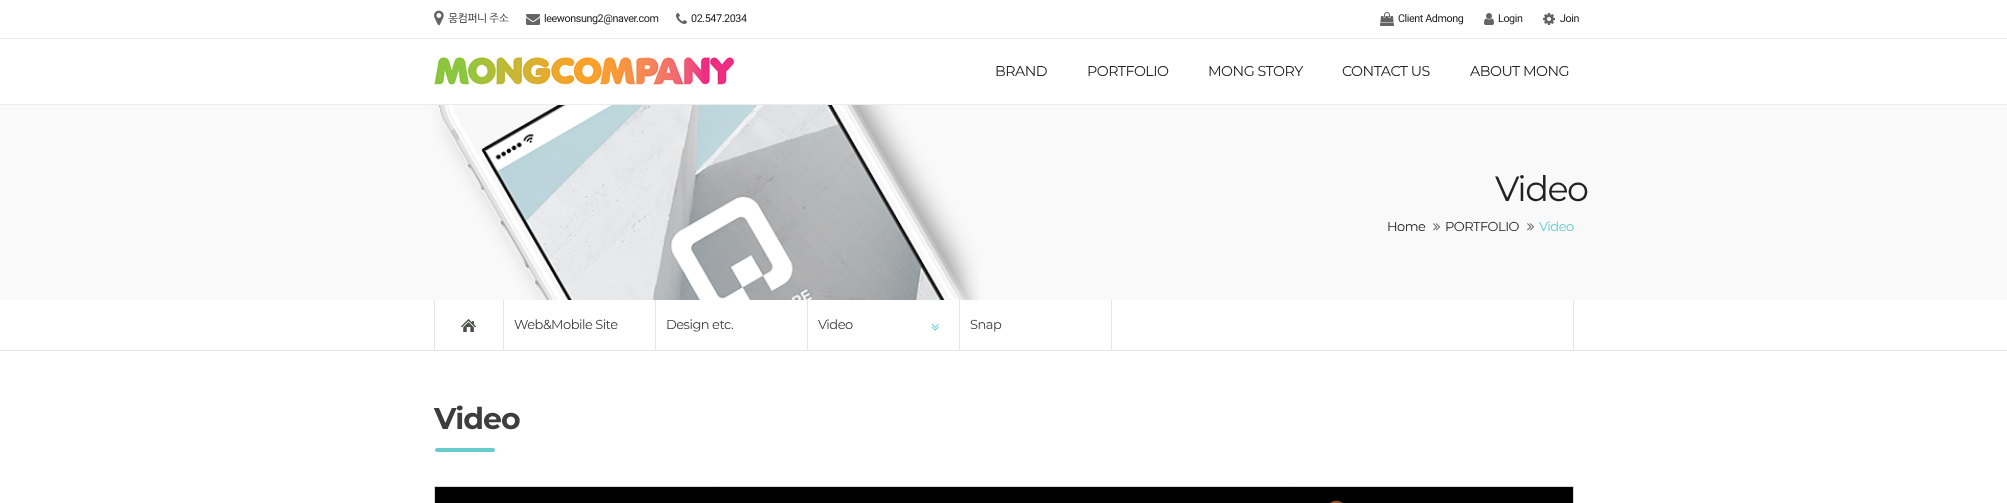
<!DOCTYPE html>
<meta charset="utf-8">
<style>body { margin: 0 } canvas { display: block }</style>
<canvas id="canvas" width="2007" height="503"></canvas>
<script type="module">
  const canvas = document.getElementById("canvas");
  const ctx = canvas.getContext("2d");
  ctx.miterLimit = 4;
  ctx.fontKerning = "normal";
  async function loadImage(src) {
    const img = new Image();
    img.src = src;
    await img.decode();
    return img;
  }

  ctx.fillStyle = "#ffffff";
  ctx.fillRect(0, 0, 2007, 503);
  ctx.drawImage(await loadImage("img1.png"), 434, 10, 10, 16);
  ctx.letterSpacing = "-0.4px";
  ctx.font = "10.75px NanumGothic";
  ctx.fillStyle = "#212121";
  ctx.fillText("몽컴퍼니 주소", 448, 22);
  ctx.drawImage(await loadImage("img2.png"), 526, 14, 14, 11);
  ctx.font = "10.75px Roboto";
  ctx.fillText("leewonsung2@naver.com", 544, 22);
  ctx.drawImage(await loadImage("img3.png"), 676, 13, 11, 11);
  ctx.fillText("02.547.2034", 691, 22);
  ctx.drawImage(await loadImage("img4.png"), 1380, 12, 14, 14);
  ctx.fillText("Client Admong", 1398, 22);
  ctx.drawImage(await loadImage("img5.png"), 1484, 13, 10, 12);
  ctx.fillText("Login", 1498, 22);
  ctx.drawImage(await loadImage("img6.png"), 1543, 13, 12, 12);
  ctx.fillText("Join", 1560, 22);
  ctx.fillStyle = "#ececec";
  ctx.fillRect(0, 38, 2007, 1);
  ctx.fillRect(0, 104, 2007, 1);
  ctx.drawImage(await loadImage("img7.png"), 434, 57, 301, 28);
  ctx.letterSpacing = "-0.5px";
  ctx.font = "14.25px Montserrat";
  ctx.fillStyle = "#212121";
  ctx.fillText("BRAND", 995, 76);
  ctx.fillText("PORTFOLIO", 1087, 76);
  ctx.fillText("MONG STORY", 1208, 76);
  ctx.fillText("CONTACT US", 1342, 76);
  ctx.fillText("ABOUT MONG", 1470, 76);
  ctx.drawImage(await loadImage("img8.png"), 0, 105, 2007, 195);
  ctx.letterSpacing = "-1.5px";
  ctx.font = "35px Montserrat";
  ctx.fillText("Video", 1495, 201);
  ctx.letterSpacing = "-0.5px";
  ctx.font = "13px Montserrat";
  ctx.fillText("Home", 1387, 231);
  ctx.drawImage(await loadImage("img9.png"), 1433, 223, 7, 8);
  ctx.fillText("PORTFOLIO", 1445, 231);
  ctx.drawImage(await loadImage("img9.png"), 1527, 223, 7, 8);
  ctx.fillStyle = "#66cdcc";
  ctx.fillText("Video", 1539, 231);
  ctx.fillStyle = "#e6e6e6";
  ctx.fillRect(0, 350, 2007, 1);
  ctx.fillRect(1573, 300, 1, 50);
  ctx.fillRect(434, 300, 1, 50);
  ctx.fillRect(503, 300, 1, 50);
  ctx.drawImage(await loadImage("img10.png"), 461, 319, 15, 13);
  ctx.fillRect(655, 300, 1, 50);
  ctx.fillStyle = "#3d3d3d";
  ctx.fillText("Web&Mobile Site", 514, 329);
  ctx.fillStyle = "#e6e6e6";
  ctx.fillRect(807, 300, 1, 50);
  ctx.fillStyle = "#3d3d3d";
  ctx.fillText("Design etc.", 666, 329);
  ctx.fillStyle = "#e6e6e6";
  ctx.fillRect(959, 300, 1, 50);
  ctx.fillStyle = "#3d3d3d";
  ctx.fillText("Video", 818, 329);
  ctx.drawImage(await loadImage("img11.png"), 931, 323, 8, 8);
  ctx.fillStyle = "#e6e6e6";
  ctx.fillRect(1111, 300, 1, 50);
  ctx.fillStyle = "#3d3d3d";
  ctx.fillText("Snap", 970, 329);
  ctx.letterSpacing = "-1px";
  ctx.font = "bold 30px Montserrat";
  ctx.fillText("Video", 434, 429);
  ctx.fillStyle = "#66cdcc";
  ctx.beginPath();
  ctx.roundRect(435, 448, 60, 4, 2);
  ctx.fill();
  ctx.fillStyle = "#000000";
  ctx.beginPath();
  ctx.rect(434.5, 486.5, 1139, 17);
  ctx.fill();
  ctx.strokeStyle = "#d7d7d7";
  ctx.stroke();
  ctx.drawImage(await loadImage("img12.png"), 1329, 500, 14, 3);
</script>
